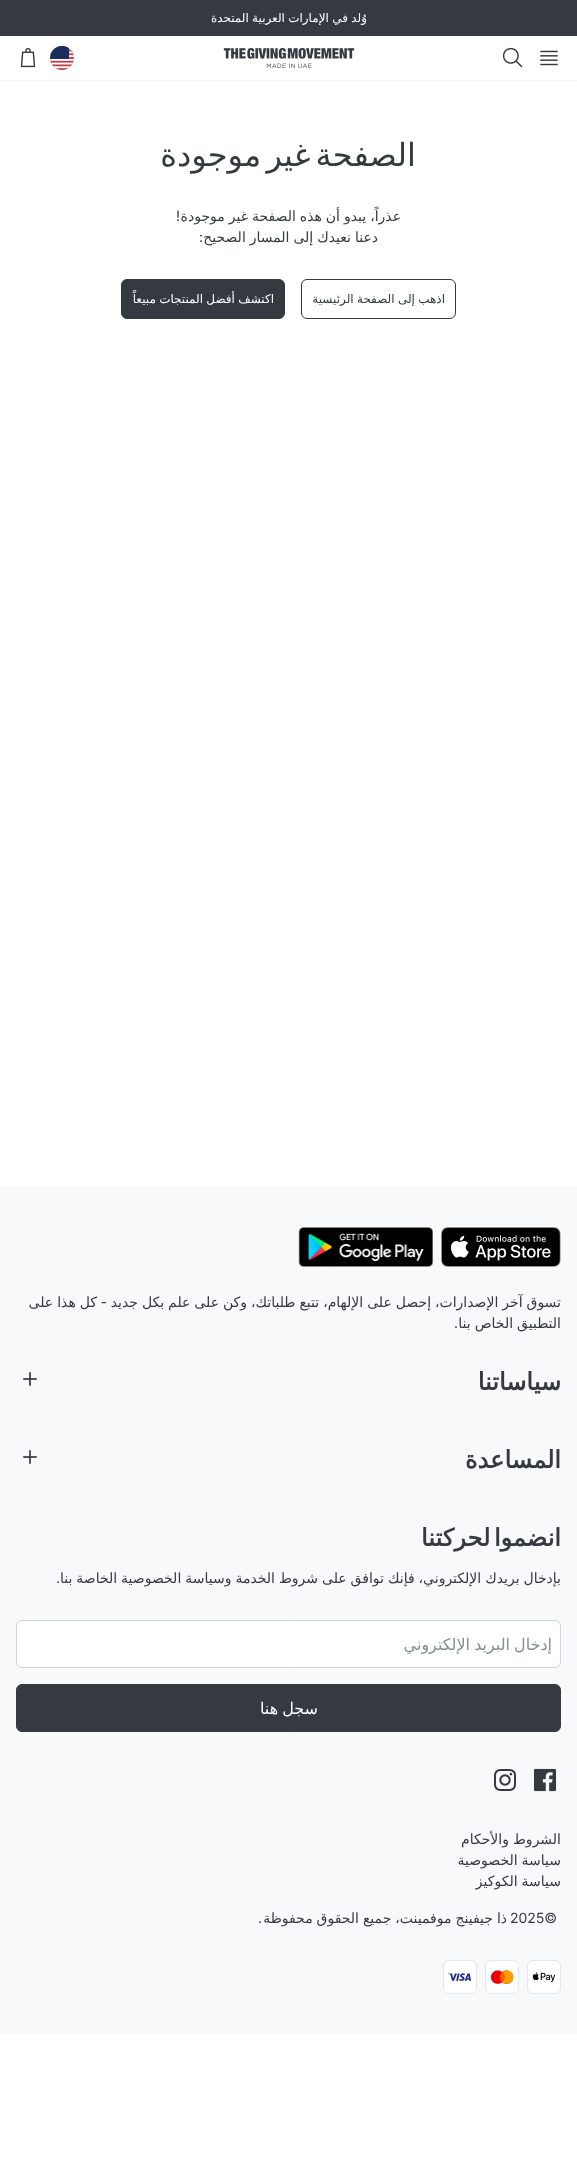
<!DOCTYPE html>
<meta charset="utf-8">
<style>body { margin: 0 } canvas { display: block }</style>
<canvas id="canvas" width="577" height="2163"></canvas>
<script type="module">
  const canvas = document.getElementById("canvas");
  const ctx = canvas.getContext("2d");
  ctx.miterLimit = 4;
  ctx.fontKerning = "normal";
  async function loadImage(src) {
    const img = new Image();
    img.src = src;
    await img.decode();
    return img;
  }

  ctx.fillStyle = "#ffffff";
  ctx.fillRect(0, 0, 577, 2163);
  ctx.fillStyle = "#343a40";
  ctx.fillRect(0, 0, 577, 36);
  ctx.wordSpacing = "-0.5px";
  ctx.direction = "rtl";
  ctx.font = "12px DejaVu Sans";
  ctx.fillStyle = "#ffffff";
  ctx.fillText("وُلد في الإمارات العربية المتحدة", 367, 22);
  ctx.fillStyle = "#f1f3f5";
  ctx.fillRect(0, 80, 577, 1);
  ctx.drawImage(await loadImage("img1.png"), 540, 50, 18, 16);
  ctx.drawImage(await loadImage("img2.png"), 502, 47, 21, 21);
  ctx.drawImage(await loadImage("img3.png"), 223, 48, 132, 20);
  ctx.drawImage(await loadImage("img4.png"), 50, 46, 24, 24);
  ctx.drawImage(await loadImage("img5.png"), 20, 48, 16, 20);
  ctx.wordSpacing = "-5px";
  ctx.font = "32px DejaVu Sans";
  ctx.fillStyle = "#343a40";
  ctx.fillText("الصفحة غير موجودة", 416, 166);
  ctx.wordSpacing = "-0.5px";
  ctx.font = "14px DejaVu Sans";
  ctx.fillText("عذراً، يبدو أن هذه الصفحة غير موجودة", 401, 221);
  ctx.wordSpacing = "0px";
  ctx.font = "14px Inter";
  ctx.fillText("!", 180, 221);
  ctx.wordSpacing = "-0.5px";
  ctx.font = "14px DejaVu Sans";
  ctx.fillText("دعنا نعيدك إلى المسار الصحيح", 378, 242);
  ctx.wordSpacing = "0px";
  ctx.font = "14px Inter";
  ctx.fillText(":", 203, 242);
  ctx.beginPath();
  ctx.roundRect(301.5, 279.5, 154, 39, 5.5);
  ctx.strokeStyle = "#343a40";
  ctx.stroke();
  ctx.wordSpacing = "-0.5px";
  ctx.font = "12px DejaVu Sans";
  ctx.fillText("اذهب إلى الصفحة الرئيسية", 445, 303);
  ctx.beginPath();
  ctx.roundRect(121.5, 279.5, 163, 39, 5.5);
  ctx.fill();
  ctx.stroke();
  ctx.fillStyle = "#ffffff";
  ctx.fillText("اكتشف أفضل المنتجات مبيعاً", 274, 303);
  ctx.fillStyle = "#f8f9fa";
  ctx.fillRect(0, 1187, 577, 847);
  ctx.drawImage(await loadImage("img6.png"), 441, 1227, 120, 40);
  ctx.drawImage(await loadImage("img7.png"), 298, 1227, 135, 40);
  ctx.font = "14px DejaVu Sans";
  ctx.fillStyle = "#343a40";
  ctx.fillText("تسوق آخر الإصدارات، إحصل على الإلهام، تتبع طلباتك، وكن على علم بكل جديد", 561, 1307);
  ctx.wordSpacing = "0px";
  ctx.font = "14px Inter";
  ctx.fillText("-", 107, 1307);
  ctx.wordSpacing = "-0.5px";
  ctx.font = "14px DejaVu Sans";
  ctx.fillText("كل هذا على", 97, 1307);
  ctx.fillText("التطبيق الخاص بنا", 561, 1328);
  ctx.wordSpacing = "0px";
  ctx.font = "14px Inter";
  ctx.fillText(".", 458, 1328);
  ctx.font = "bold 24px DejaVu Sans";
  ctx.fillText("سياساتنا", 561, 1390);
  ctx.drawImage(await loadImage("img8.png"), 23, 1372, 14, 14);
  ctx.fillText("المساعدة", 561, 1468);
  ctx.drawImage(await loadImage("img8.png"), 23, 1450, 14, 14);
  ctx.wordSpacing = "-4px";
  ctx.fillText("انضموا لحركتنا", 561, 1546);
  ctx.wordSpacing = "-0.5px";
  ctx.font = "14px DejaVu Sans";
  ctx.fillText("بإدخال بريدك الإلكتروني، فإنك توافق على شروط الخدمة وسياسة الخصوصية الخاصة بنا", 561, 1583);
  ctx.wordSpacing = "0px";
  ctx.font = "14px Inter";
  ctx.fillText(".", 60, 1583);
  ctx.fillStyle = "#ffffff";
  ctx.beginPath();
  ctx.roundRect(16.5, 1620.5, 544, 47, 5.5);
  ctx.fill();
  ctx.strokeStyle = "#ced4da";
  ctx.stroke();
  ctx.wordSpacing = "-1px";
  ctx.font = "16px DejaVu Sans";
  ctx.fillStyle = "#868e96";
  ctx.fillText("إدخال البريد الإلكتروني", 552, 1650);
  ctx.fillStyle = "#343a40";
  ctx.beginPath();
  ctx.roundRect(16.5, 1684.5, 544, 47, 5.5);
  ctx.fill();
  ctx.strokeStyle = "#343a40";
  ctx.stroke();
  ctx.fillStyle = "#ffffff";
  ctx.fillText("سجل هنا", 318, 1714);
  ctx.drawImage(await loadImage("img9.png"), 533, 1768, 24, 24);
  ctx.drawImage(await loadImage("img10.png"), 493, 1769, 24, 22);
  ctx.wordSpacing = "-0.5px";
  ctx.font = "14px DejaVu Sans";
  ctx.fillStyle = "#343a40";
  ctx.fillText("الشروط والأحكام", 561, 1844);
  ctx.fillText("سياسة الخصوصية", 561, 1865);
  ctx.fillText("سياسة الكوكيز", 561, 1886);
  ctx.wordSpacing = "0px";
  ctx.direction = "ltr";
  ctx.font = "14px Inter";
  ctx.fillText("2025©", 510, 1923);
  ctx.wordSpacing = "-0.5px";
  ctx.direction = "rtl";
  ctx.font = "14px DejaVu Sans";
  ctx.fillText("ذا جيفينج موفمينت، جميع الحقوق محفوظة", 507, 1923);
  ctx.wordSpacing = "0px";
  ctx.font = "14px Inter";
  ctx.fillText(".", 262, 1923);
  ctx.fillStyle = "#ffffff";
  ctx.beginPath();
  ctx.roundRect(527.5, 1960.5, 33, 33, 5.5);
  ctx.fill();
  ctx.strokeStyle = "#e5e7eb";
  ctx.stroke();
  ctx.drawImage(await loadImage("img11.png"), 532, 1972, 24, 10);
  ctx.beginPath();
  ctx.roundRect(485.5, 1960.5, 33, 33, 5.5);
  ctx.fill();
  ctx.stroke();
  ctx.drawImage(await loadImage("img12.png"), 490, 1970, 24, 14);
  ctx.beginPath();
  ctx.roundRect(443.5, 1960.5, 33, 33, 5.5);
  ctx.fill();
  ctx.stroke();
  ctx.drawImage(await loadImage("img13.png"), 448, 1973, 24, 8);
</script>
